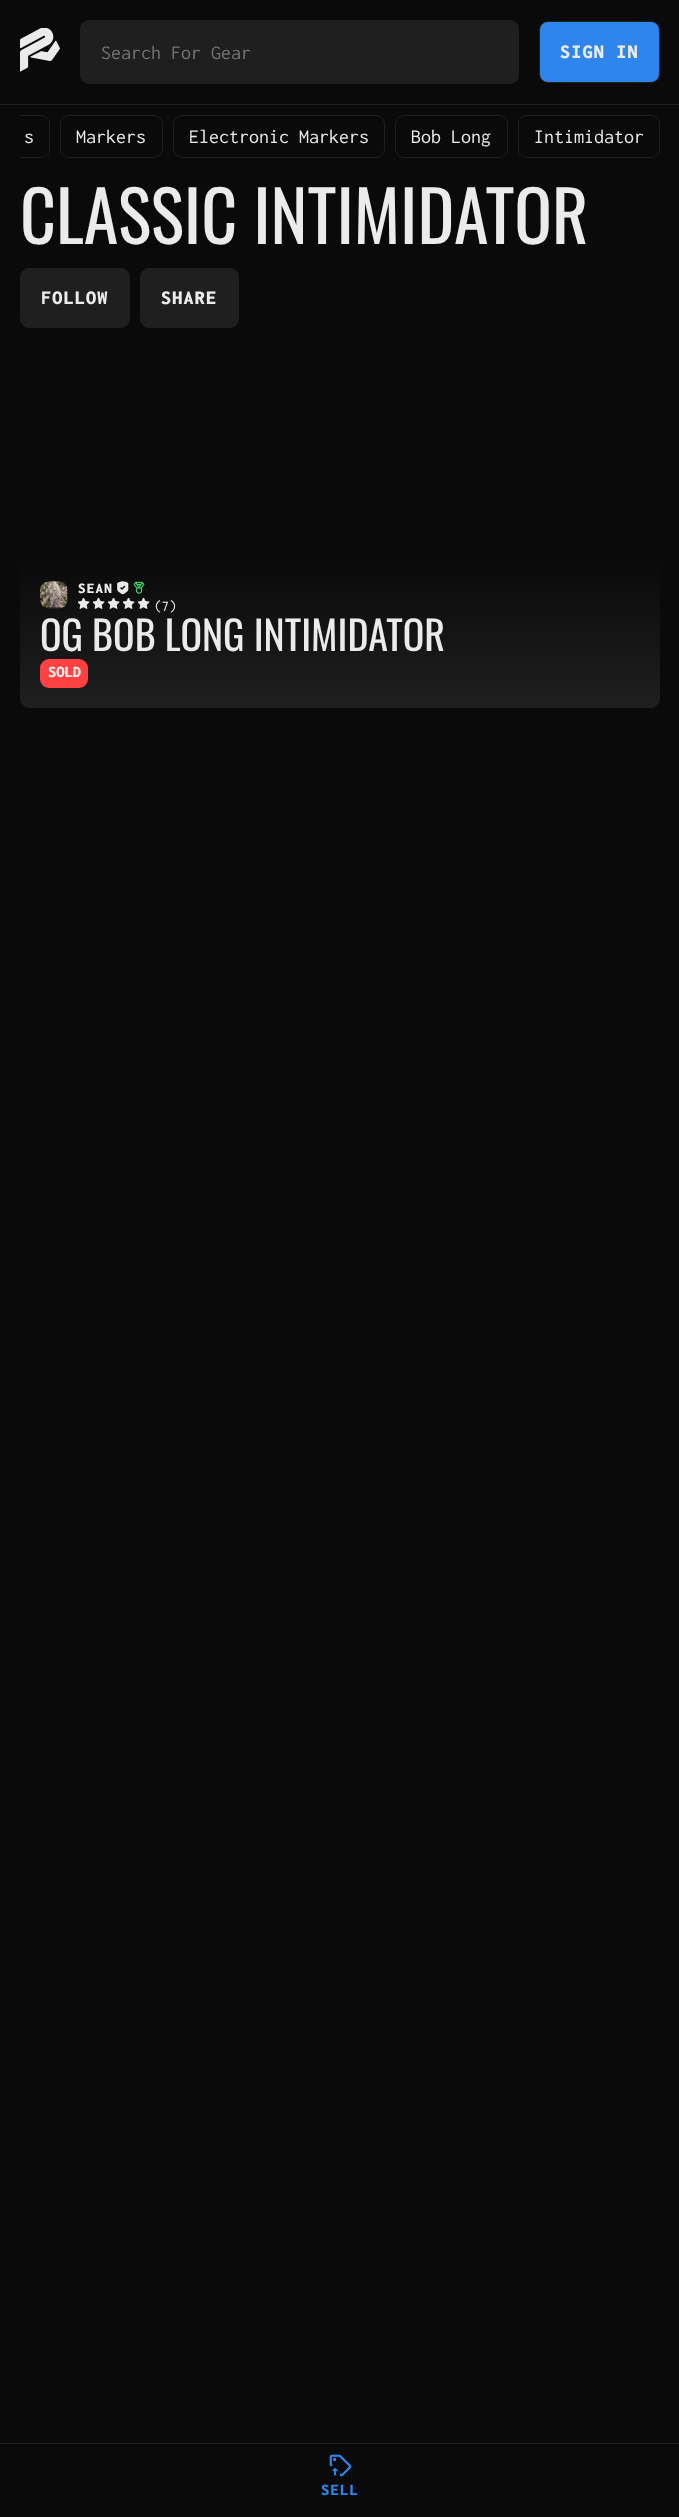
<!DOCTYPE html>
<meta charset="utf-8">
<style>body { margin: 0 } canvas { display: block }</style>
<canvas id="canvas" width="679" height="2517"></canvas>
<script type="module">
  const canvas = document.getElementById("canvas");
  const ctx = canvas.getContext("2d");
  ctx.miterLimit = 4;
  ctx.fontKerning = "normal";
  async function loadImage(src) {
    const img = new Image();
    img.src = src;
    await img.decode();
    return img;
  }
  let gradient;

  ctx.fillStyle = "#0a0a0a";
  ctx.fillRect(0, 0, 679, 2517);
  ctx.fillStyle = "#1f1f1f";
  ctx.fillRect(0, 104, 679, 1);
  ctx.drawImage(await loadImage("img1.png"), 20, 28, 40, 44);
  ctx.beginPath();
  ctx.roundRect(80.5, 20.5, 438, 63, 8.5);
  ctx.fill();
  ctx.strokeStyle = "#1f1f1f";
  ctx.stroke();
  ctx.font = "20px Inconsolata";
  ctx.fillStyle = "#757575";
  ctx.fillText("Search For Gear", 101, 59);
  ctx.fillStyle = "#2e85eb";
  ctx.beginPath();
  ctx.roundRect(539.5, 21.5, 120, 61, 8.5);
  ctx.fill();
  ctx.stroke();
  ctx.letterSpacing = "1.25px";
  ctx.font = "900 20px Inconsolata";
  ctx.fillStyle = "#ebebeb";
  ctx.fillText("SIGN IN", 560, 58);
  ctx.save();
  ctx.beginPath();
  ctx.rect(20, 115, 640, 43);
  ctx.clip();
  ctx.beginPath();
  ctx.roundRect(-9.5, 115.5, 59, 42, 8.5);
  ctx.stroke();
  ctx.restore();
  ctx.letterSpacing = "0px";
  ctx.font = "20px Inconsolata";
  ctx.fillText("s", 24, 143);
  ctx.beginPath();
  ctx.roundRect(60.5, 115.5, 102, 42, 8.5);
  ctx.stroke();
  ctx.fillText("Markers", 76, 143);
  ctx.beginPath();
  ctx.roundRect(173.5, 115.5, 211, 42, 8.5);
  ctx.stroke();
  ctx.fillText("Electronic Markers", 189, 143);
  ctx.beginPath();
  ctx.roundRect(395.5, 115.5, 112, 42, 8.5);
  ctx.stroke();
  ctx.fillText("Bob Long", 411, 143);
  ctx.beginPath();
  ctx.roundRect(518.5, 115.5, 141, 42, 8.5);
  ctx.stroke();
  ctx.fillText("Intimidator", 534, 143);
  ctx.font = "70px Oswald";
  ctx.fillText("CLASSIC INTIMIDATOR", 20, 244);
  ctx.fillStyle = "#1f1f1f";
  ctx.beginPath();
  ctx.roundRect(20.5, 268.5, 109, 59, 8.5);
  ctx.fill();
  ctx.stroke();
  ctx.letterSpacing = "1.25px";
  ctx.font = "900 20px Inconsolata";
  ctx.fillStyle = "#ebebeb";
  ctx.fillText("FOLLOW", 41, 304);
  ctx.fillStyle = "#1f1f1f";
  ctx.beginPath();
  ctx.roundRect(140.5, 268.5, 98, 59, 8.5);
  ctx.fill();
  ctx.stroke();
  ctx.fillStyle = "#ebebeb";
  ctx.fillText("SHARE", 161, 304);
  gradient = ctx.createLinearGradient(340, 708, 340, 561);
  gradient.addColorStop(0, "#1f1f1f");
  gradient.addColorStop(1, "#0a0a0a");
  ctx.fillStyle = gradient;
  ctx.beginPath();
  ctx.roundRect(20, 561, 640, 147, [0, 0, 9, 9]);
  ctx.fill();
  ctx.fillStyle = "#1f1f1f";
  ctx.beginPath();
  ctx.roundRect(40, 581, 28, 28, 9);
  ctx.fill();
  ctx.drawImage(await loadImage("img2.png"), 40, 581, 28, 27);
  ctx.font = "900 15px Inconsolata";
  ctx.fillStyle = "#ebebeb";
  ctx.fillText("SEAN", 78, 593);
  ctx.drawImage(await loadImage("img3.png"), 117, 581, 12, 14);
  ctx.drawImage(await loadImage("img4.png"), 133, 581, 12, 13);
  ctx.drawImage(await loadImage("img5.png"), 78, 598, 12, 11);
  ctx.drawImage(await loadImage("img5.png"), 93, 598, 12, 11);
  ctx.drawImage(await loadImage("img5.png"), 108, 598, 12, 11);
  ctx.drawImage(await loadImage("img5.png"), 123, 598, 12, 11);
  ctx.drawImage(await loadImage("img5.png"), 138, 598, 12, 11);
  ctx.letterSpacing = "0px";
  ctx.font = "15px Inconsolata";
  ctx.fillText("(7)", 154, 611);
  ctx.font = "40px Oswald";
  ctx.fillText("OG BOB LONG INTIMIDATOR", 40, 651);
  ctx.fillStyle = "#ff4141";
  ctx.beginPath();
  ctx.roundRect(40, 659, 48, 29, 9);
  ctx.fill();
  ctx.font = "900 16.5px Inconsolata";
  ctx.fillStyle = "#ebebeb";
  ctx.fillText("SOLD", 48, 677);
  ctx.fillStyle = "#1f1f1f";
  ctx.fillRect(0, 2443, 679, 1);
  ctx.drawImage(await loadImage("img6.png"), 329, 2454, 23, 23);
  ctx.letterSpacing = "1.25px";
  ctx.fillStyle = "#2e85eb";
  ctx.fillText("SELL", 321, 2495);
</script>
